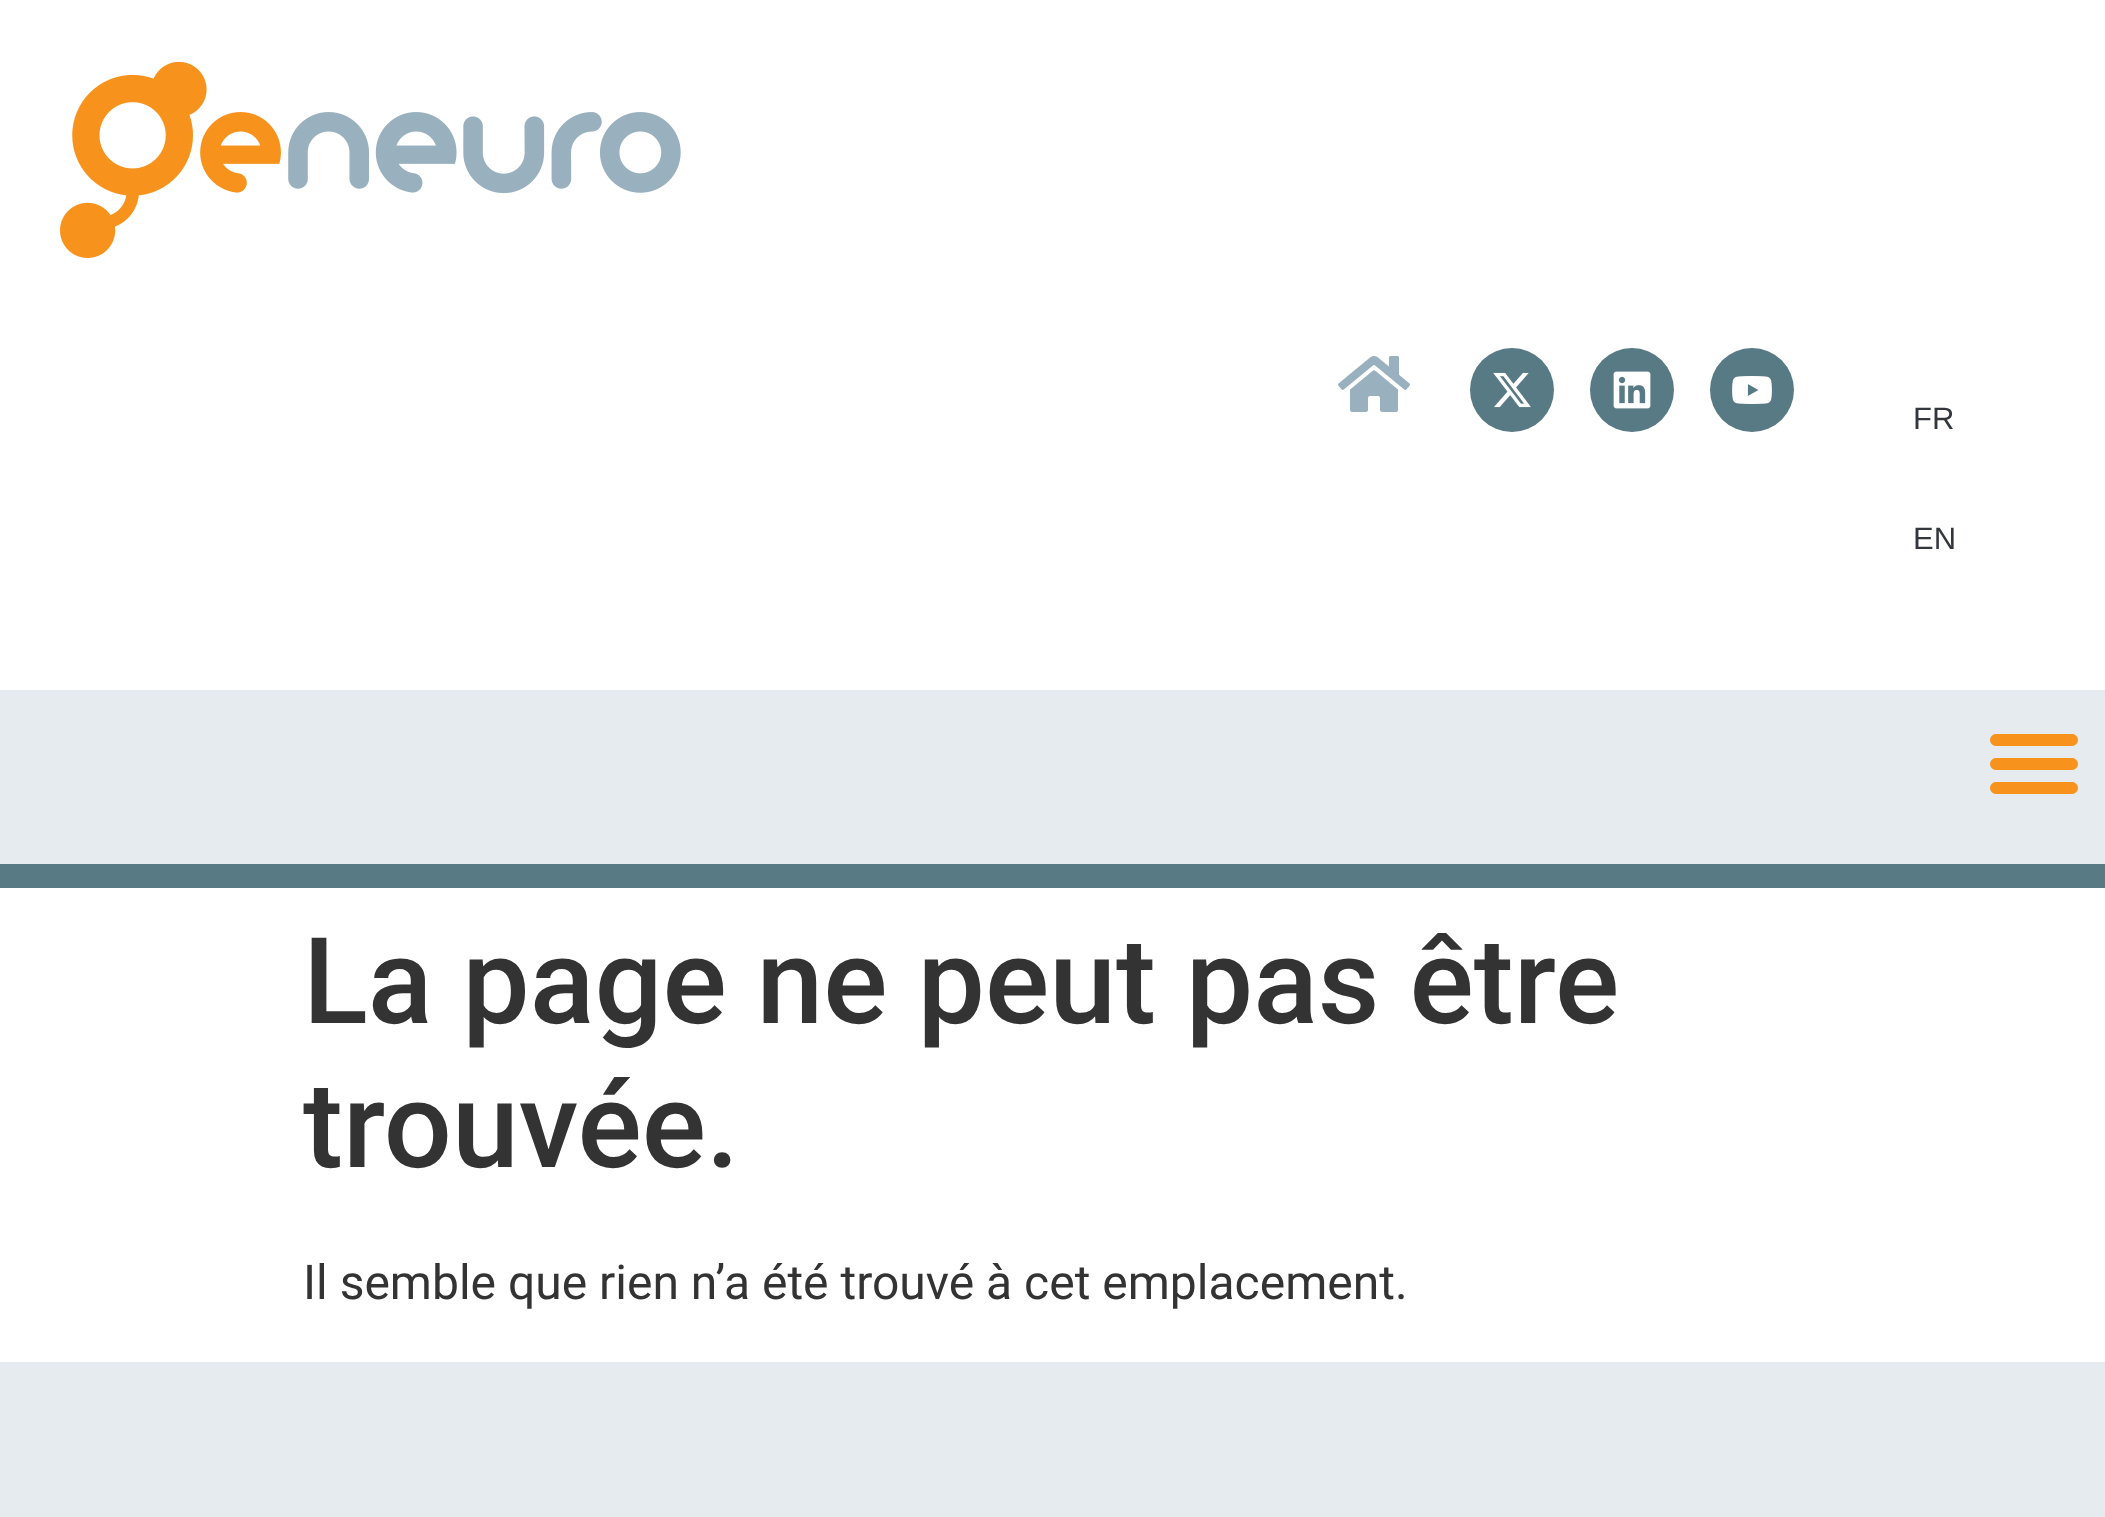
<!DOCTYPE html>
<meta charset="utf-8">
<style>body { margin: 0 } canvas { display: block }</style>
<canvas id="canvas" width="2105" height="1517"></canvas>
<script type="module">
  const canvas = document.getElementById("canvas");
  const ctx = canvas.getContext("2d");
  ctx.miterLimit = 4;
  ctx.fontKerning = "normal";
  async function loadImage(src) {
    const img = new Image();
    img.src = src;
    await img.decode();
    return img;
  }

  ctx.fillStyle = "#ffffff";
  ctx.fillRect(0, 0, 2105, 1517);
  ctx.drawImage(await loadImage("img1.png"), 60, 61, 621, 197);
  ctx.drawImage(await loadImage("img2.png"), 1338, 356, 72, 56);
  ctx.fillStyle = "#577a84";
  ctx.beginPath();
  ctx.arc(1512, 390, 42, 0, Math.PI * 2);
  ctx.fill();
  ctx.drawImage(await loadImage("img3.png"), 1493, 372, 38, 36);
  ctx.beginPath();
  ctx.arc(1632, 390, 42, 0, Math.PI * 2);
  ctx.fill();
  ctx.drawImage(await loadImage("img4.png"), 1613, 371, 38, 38);
  ctx.beginPath();
  ctx.arc(1752, 390, 42, 0, Math.PI * 2);
  ctx.fill();
  ctx.drawImage(await loadImage("img5.png"), 1732, 376, 40, 28);
  ctx.font = "31px Liberation Sans";
  ctx.fillStyle = "#33373d";
  ctx.fillText("FR", 1913, 429);
  ctx.fillText("EN", 1913, 549);
  ctx.fillStyle = "#e5ebef";
  ctx.fillRect(0, 690, 2105, 174);
  ctx.fillStyle = "#577a84";
  ctx.fillRect(0, 864, 2105, 24);
  ctx.drawImage(await loadImage("img6.png"), 1990, 734, 88, 60);
  ctx.font = "500 120px Roboto";
  ctx.fillStyle = "#333333";
  ctx.fillText("La page ne peut pas être", 303, 1023);
  ctx.fillText("trouvée.", 303, 1167);
  ctx.font = "48px Roboto";
  ctx.fillText("Il semble que rien n’a été trouvé à cet emplacement.", 303, 1299);
  ctx.fillStyle = "#e5ebef";
  ctx.fillRect(0, 1362, 2105, 155);
</script>
